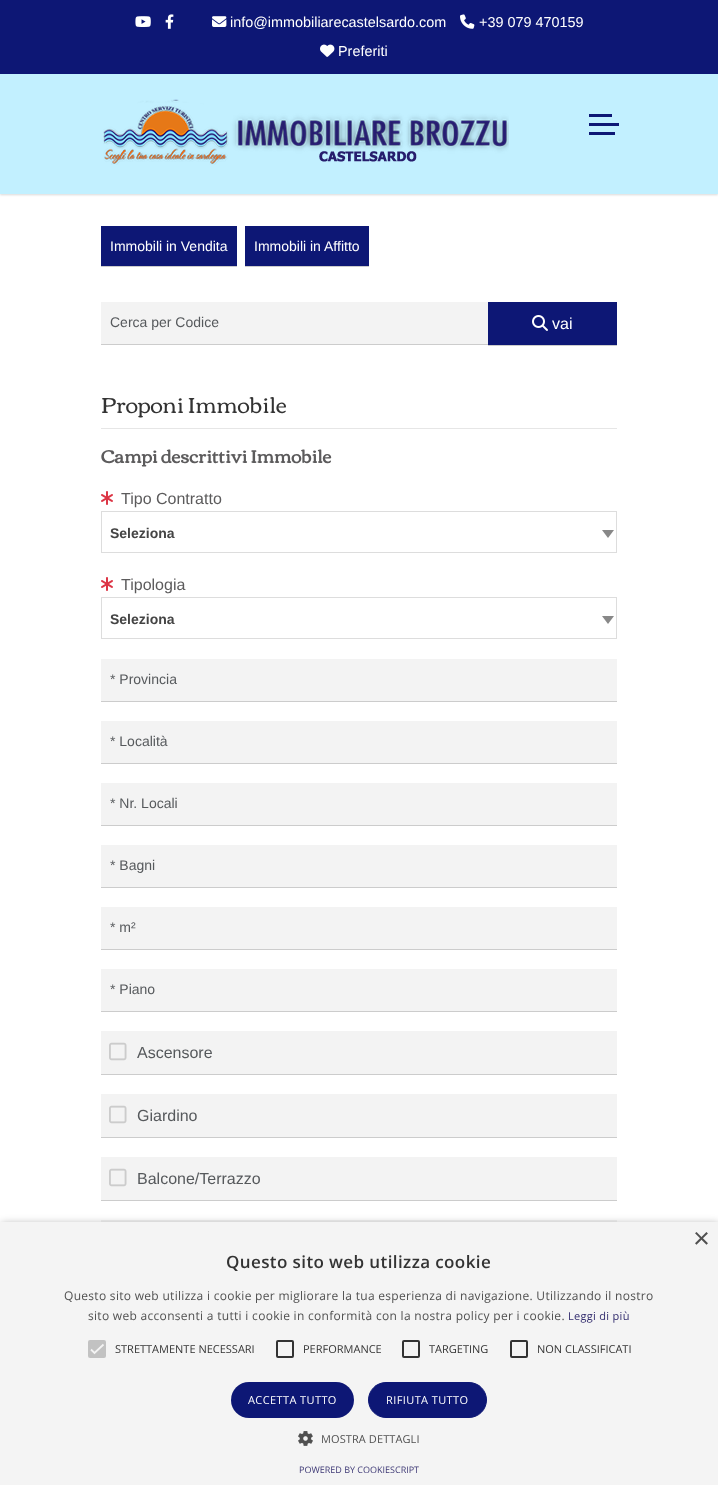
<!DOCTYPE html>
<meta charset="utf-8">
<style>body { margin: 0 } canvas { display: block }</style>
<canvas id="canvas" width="718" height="1485"></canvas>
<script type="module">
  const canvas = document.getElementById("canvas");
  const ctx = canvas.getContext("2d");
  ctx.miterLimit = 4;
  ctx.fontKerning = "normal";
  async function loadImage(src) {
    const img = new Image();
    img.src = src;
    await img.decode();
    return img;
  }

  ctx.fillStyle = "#ffffff";
  ctx.fillRect(0, 0, 718, 1485);
  ctx.fillStyle = "rgba(0, 0, 0, 0.15)";
  ctx.filter = "blur(1px)";
  ctx.beginPath();
  ctx.rect(0, 1, 718, 194);
  ctx.fill();
  ctx.filter = "none";
  ctx.fillStyle = "#c2f0ff";
  ctx.fillRect(0, 74, 718, 120);
  ctx.fillStyle = "#0d1775";
  ctx.fillRect(0, 0, 718, 74);
  ctx.drawImage(await loadImage("img1.png"), 135, 16, 16, 11);
  ctx.drawImage(await loadImage("img2.png"), 165, 14, 9, 15);
  ctx.drawImage(await loadImage("img3.png"), 212, 16, 15, 11);
  ctx.font = "14.4px Liberation Sans";
  ctx.fillStyle = "#ffffff";
  ctx.fillText("info@immobiliarecastelsardo.com", 230, 27);
  ctx.drawImage(await loadImage("img4.png"), 460, 14, 15, 15);
  ctx.fillText("+39 079 470159", 479, 27);
  ctx.drawImage(await loadImage("img5.png"), 320, 44, 15, 13);
  ctx.fillText("Preferiti", 338, 56);
  ctx.drawImage(await loadImage("img6.png"), 103, 99, 406, 66);
  ctx.fillStyle = "#0d1775";
  ctx.fillRect(589, 114, 23, 3);
  ctx.fillRect(589, 123, 30, 3);
  ctx.fillRect(589, 132, 26, 3);
  ctx.fillStyle = "rgba(0, 0, 0, 0.2)";
  ctx.filter = "blur(0.5px)";
  ctx.beginPath();
  ctx.rect(101, 227, 136, 40);
  ctx.fill();
  ctx.filter = "none";
  ctx.fillStyle = "#0d1775";
  ctx.fillRect(101, 226, 136, 40);
  ctx.font = "14px Liberation Sans";
  ctx.fillStyle = "#ffffff";
  ctx.fillText("Immobili in Vendita", 110, 251);
  ctx.fillStyle = "rgba(0, 0, 0, 0.2)";
  ctx.filter = "blur(0.5px)";
  ctx.beginPath();
  ctx.rect(245, 227, 124, 40);
  ctx.fill();
  ctx.filter = "none";
  ctx.fillStyle = "#0d1775";
  ctx.fillRect(245, 226, 124, 40);
  ctx.fillStyle = "#ffffff";
  ctx.fillText("Immobili in Affitto", 254, 251);
  ctx.fillStyle = "rgba(0, 0, 0, 0.2)";
  ctx.filter = "blur(0.5px)";
  ctx.beginPath();
  ctx.rect(101, 303, 387, 42);
  ctx.fill();
  ctx.filter = "none";
  ctx.fillStyle = "#f3f3f3";
  ctx.fillRect(101, 302, 387, 42);
  ctx.fillStyle = "#56595c";
  ctx.fillText("Cerca per Codice", 110, 327);
  ctx.fillStyle = "rgba(0, 0, 0, 0.2)";
  ctx.filter = "blur(0.5px)";
  ctx.beginPath();
  ctx.rect(488, 303, 129, 43);
  ctx.fill();
  ctx.filter = "none";
  ctx.fillStyle = "#0d1775";
  ctx.fillRect(488, 302, 129, 43);
  ctx.drawImage(await loadImage("img7.png"), 532, 315, 16, 16);
  ctx.font = "16px Liberation Sans";
  ctx.fillStyle = "#ffffff";
  ctx.fillText("vai", 552, 329);
  ctx.fillStyle = "#e6e6e6";
  ctx.fillRect(101, 428, 516, 1);
  ctx.font = "22px Corben";
  ctx.fillStyle = "#333333";
  ctx.fillText("Proponi Immobile", 101, 413);
  ctx.font = "bold 18px Corben";
  ctx.fillStyle = "#5c5b5c";
  ctx.fillText("Campi descrittivi Immobile", 101, 463);
  ctx.drawImage(await loadImage("img8.png"), 101, 491, 12, 14);
  ctx.font = "16px Liberation Sans";
  ctx.fillText("Tipo Contratto", 121, 504);
  ctx.strokeStyle = "#dddddd";
  ctx.strokeRect(101.5, 511.5, 515, 41);
  ctx.font = "bold 14px Liberation Sans";
  ctx.fillStyle = "#444444";
  ctx.fillText("Seleziona", 110, 538);
  ctx.fillStyle = "#888888";
  ctx.beginPath();
  ctx.moveTo(602, 530);
  ctx.lineTo(614, 530);
  ctx.lineTo(608, 538);
  ctx.closePath();
  ctx.fill();
  ctx.drawImage(await loadImage("img8.png"), 101, 577, 12, 14);
  ctx.font = "16px Liberation Sans";
  ctx.fillStyle = "#5c5b5c";
  ctx.fillText("Tipologia", 121, 590);
  ctx.strokeRect(101.5, 597.5, 515, 41);
  ctx.font = "bold 14px Liberation Sans";
  ctx.fillStyle = "#444444";
  ctx.fillText("Seleziona", 110, 624);
  ctx.fillStyle = "#888888";
  ctx.beginPath();
  ctx.moveTo(602, 616);
  ctx.lineTo(614, 616);
  ctx.lineTo(608, 624);
  ctx.closePath();
  ctx.fill();
  ctx.fillStyle = "rgba(0, 0, 0, 0.2)";
  ctx.filter = "blur(0.5px)";
  ctx.beginPath();
  ctx.rect(101, 660, 516, 42);
  ctx.fill();
  ctx.filter = "none";
  ctx.fillStyle = "#f3f3f3";
  ctx.fillRect(101, 659, 516, 42);
  ctx.font = "14px Liberation Sans";
  ctx.fillStyle = "#56595c";
  ctx.fillText("* Provincia", 110, 684);
  ctx.fillStyle = "rgba(0, 0, 0, 0.2)";
  ctx.filter = "blur(0.5px)";
  ctx.beginPath();
  ctx.rect(101, 722, 516, 42);
  ctx.fill();
  ctx.filter = "none";
  ctx.fillStyle = "#f3f3f3";
  ctx.fillRect(101, 721, 516, 42);
  ctx.fillStyle = "#56595c";
  ctx.fillText("* Località", 110, 746);
  ctx.fillStyle = "rgba(0, 0, 0, 0.2)";
  ctx.filter = "blur(0.5px)";
  ctx.beginPath();
  ctx.rect(101, 784, 516, 42);
  ctx.fill();
  ctx.filter = "none";
  ctx.fillStyle = "#f3f3f3";
  ctx.fillRect(101, 783, 516, 42);
  ctx.fillStyle = "#56595c";
  ctx.fillText("* Nr. Locali", 110, 808);
  ctx.fillStyle = "rgba(0, 0, 0, 0.2)";
  ctx.filter = "blur(0.5px)";
  ctx.beginPath();
  ctx.rect(101, 846, 516, 42);
  ctx.fill();
  ctx.filter = "none";
  ctx.fillStyle = "#f3f3f3";
  ctx.fillRect(101, 845, 516, 42);
  ctx.fillStyle = "#56595c";
  ctx.fillText("* Bagni", 110, 870);
  ctx.fillStyle = "rgba(0, 0, 0, 0.2)";
  ctx.filter = "blur(0.5px)";
  ctx.beginPath();
  ctx.rect(101, 908, 516, 42);
  ctx.fill();
  ctx.filter = "none";
  ctx.fillStyle = "#f3f3f3";
  ctx.fillRect(101, 907, 516, 42);
  ctx.fillStyle = "#56595c";
  ctx.fillText("* m²", 110, 932);
  ctx.fillStyle = "rgba(0, 0, 0, 0.2)";
  ctx.filter = "blur(0.5px)";
  ctx.beginPath();
  ctx.rect(101, 970, 516, 42);
  ctx.fill();
  ctx.filter = "none";
  ctx.fillStyle = "#f3f3f3";
  ctx.fillRect(101, 969, 516, 42);
  ctx.fillStyle = "#56595c";
  ctx.fillText("* Piano", 110, 994);
  ctx.fillStyle = "rgba(0, 0, 0, 0.2)";
  ctx.filter = "blur(0.5px)";
  ctx.beginPath();
  ctx.rect(101, 1032, 516, 43);
  ctx.fill();
  ctx.filter = "none";
  ctx.fillStyle = "#f3f3f3";
  ctx.fillRect(101, 1031, 516, 43);
  ctx.drawImage(await loadImage("img9.png"), 109, 1042, 18, 19);
  ctx.font = "16px Liberation Sans";
  ctx.fillStyle = "#56595c";
  ctx.fillText("Ascensore", 137, 1058);
  ctx.fillStyle = "rgba(0, 0, 0, 0.2)";
  ctx.filter = "blur(0.5px)";
  ctx.beginPath();
  ctx.rect(101, 1095, 516, 43);
  ctx.fill();
  ctx.filter = "none";
  ctx.fillStyle = "#f3f3f3";
  ctx.fillRect(101, 1094, 516, 43);
  ctx.drawImage(await loadImage("img9.png"), 109, 1105, 18, 19);
  ctx.fillStyle = "#56595c";
  ctx.fillText("Giardino", 137, 1121);
  ctx.fillStyle = "rgba(0, 0, 0, 0.2)";
  ctx.filter = "blur(0.5px)";
  ctx.beginPath();
  ctx.rect(101, 1158, 516, 43);
  ctx.fill();
  ctx.filter = "none";
  ctx.fillStyle = "#f3f3f3";
  ctx.fillRect(101, 1157, 516, 43);
  ctx.drawImage(await loadImage("img9.png"), 109, 1168, 18, 19);
  ctx.fillStyle = "#56595c";
  ctx.fillText("Balcone/Terrazzo", 137, 1184);
  ctx.fillStyle = "#f3f3f3";
  ctx.fillRect(101, 1220, 516, 2);
  ctx.fillStyle = "rgba(0, 0, 0, 0.35)";
  ctx.filter = "blur(4px)";
  ctx.beginPath();
  ctx.rect(1, 1224, 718, 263);
  ctx.fill();
  ctx.filter = "none";
  ctx.fillStyle = "#f4f4f4";
  ctx.fillRect(0, 1222, 718, 263);
  ctx.font = "29px Liberation Sans";
  ctx.fillStyle = "#505050";
  ctx.fillText("×", 693, 1248);
  ctx.letterSpacing = "0.4px";
  ctx.font = "600 17px Open Sans";
  ctx.fillStyle = "#333333";
  ctx.fillText("Questo sito web utilizza cookie", 226, 1268);
  ctx.letterSpacing = "0.3px";
  ctx.font = "12px Open Sans";
  ctx.fillStyle = "#505050";
  ctx.fillText("Questo sito web utilizza i cookie per migliorare la tua esperienza di navigazione. Utilizzando il nostro", 64, 1300);
  ctx.fillText("sito web acconsenti a tutti i cookie in conformità con la nostra policy per i cookie.", 88, 1320);
  ctx.font = "11px Open Sans";
  ctx.fillStyle = "#342e6f";
  ctx.fillText("Leggi di più", 568, 1320);
  ctx.fillStyle = "#c2c2c2";
  ctx.beginPath();
  ctx.roundRect(88, 1340, 18, 18, 2);
  ctx.fill();
  ctx.beginPath();
  ctx.moveTo(91, 1349.5);
  ctx.lineTo(94.5, 1353);
  ctx.lineTo(103.5, 1344.5);
  ctx.strokeStyle = "#f4f4f4";
  ctx.lineWidth = 1.8;
  ctx.stroke();
  ctx.letterSpacing = "0px";
  ctx.fillStyle = "#333333";
  ctx.fillText("STRETTAMENTE NECESSARI", 115, 1353);
  ctx.beginPath();
  ctx.roundRect(277, 1341, 16, 16, 1);
  ctx.strokeStyle = "#333333";
  ctx.lineWidth = 2;
  ctx.stroke();
  ctx.fillText("PERFORMANCE", 303, 1353);
  ctx.beginPath();
  ctx.roundRect(403, 1341, 16, 16, 1);
  ctx.stroke();
  ctx.fillText("TARGETING", 429, 1353);
  ctx.beginPath();
  ctx.roundRect(511, 1341, 16, 16, 1);
  ctx.stroke();
  ctx.fillText("NON CLASSIFICATI", 537, 1353);
  ctx.fillStyle = "#0d1775";
  ctx.beginPath();
  ctx.roundRect(231, 1382, 123, 36, 18);
  ctx.fill();
  ctx.letterSpacing = "0.4px";
  ctx.fillStyle = "#ffffff";
  ctx.fillText("ACCETTA TUTTO", 248, 1404);
  ctx.fillStyle = "#0d1775";
  ctx.beginPath();
  ctx.roundRect(368.5, 1382.5, 118, 35, 17.5);
  ctx.fill();
  ctx.strokeStyle = "#0d1775";
  ctx.lineWidth = 1;
  ctx.stroke();
  ctx.fillStyle = "#ffffff";
  ctx.fillText("RIFIUTA TUTTO", 386, 1404);
  ctx.drawImage(await loadImage("img10.png"), 298, 1431, 15, 15);
  ctx.letterSpacing = "0.1px";
  ctx.fillStyle = "#505050";
  ctx.fillText("MOSTRA DETTAGLI", 321, 1443);
  ctx.letterSpacing = "0px";
  ctx.font = "9px Open Sans";
  ctx.fillStyle = "#3f3a76";
  ctx.fillText("POWERED BY COOKIESCRIPT", 299, 1473);
</script>
